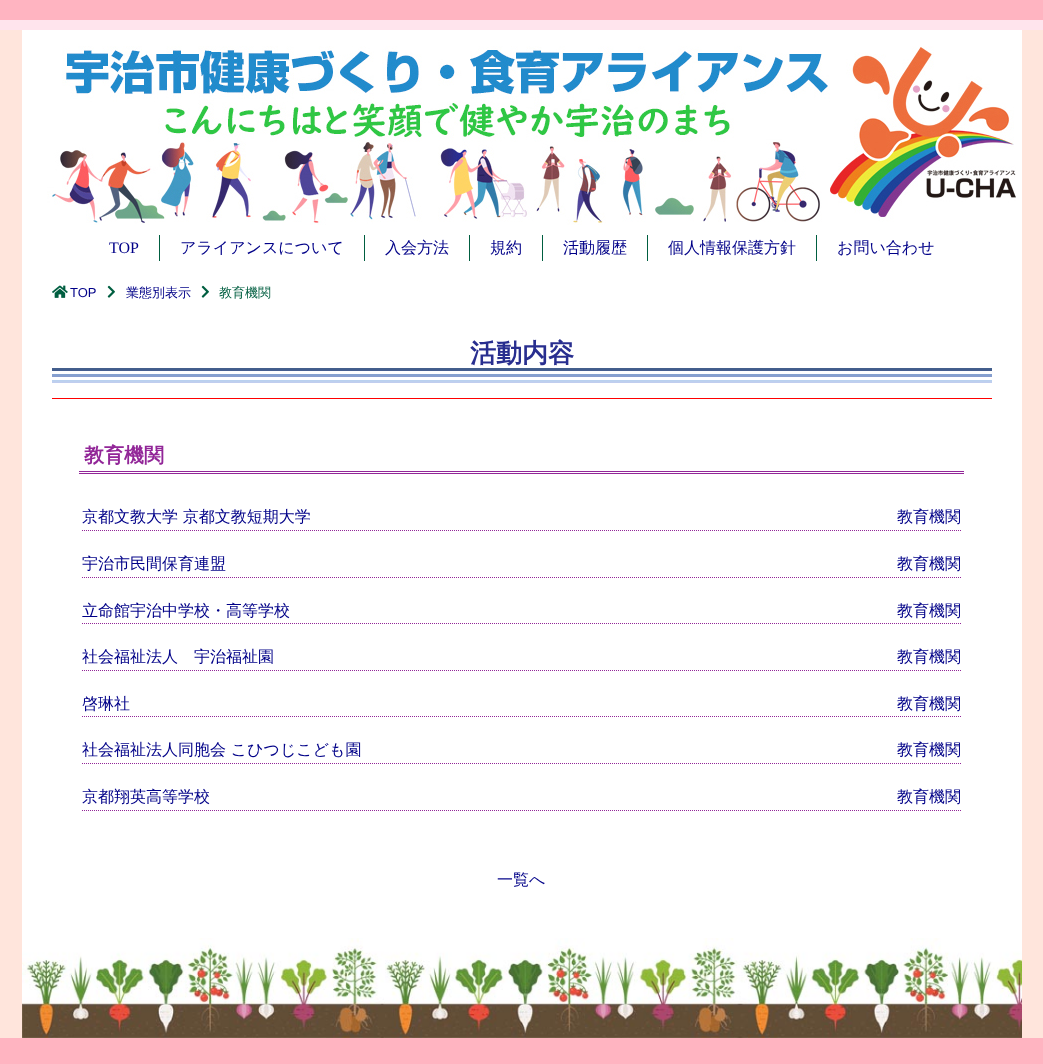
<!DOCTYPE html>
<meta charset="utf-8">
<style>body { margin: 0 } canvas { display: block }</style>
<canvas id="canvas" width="1043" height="1064"></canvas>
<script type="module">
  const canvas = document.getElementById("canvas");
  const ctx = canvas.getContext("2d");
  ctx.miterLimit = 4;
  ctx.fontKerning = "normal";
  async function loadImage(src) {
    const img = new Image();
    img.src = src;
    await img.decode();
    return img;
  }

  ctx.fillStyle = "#ffe5dc";
  ctx.fillRect(0, 0, 1043, 1064);
  ctx.fillStyle = "#ffb4c1";
  ctx.fillRect(0, 0, 1043, 20);
  ctx.fillStyle = "#ffe4ed";
  ctx.fillRect(0, 20, 1043, 10);
  ctx.fillStyle = "#ffffff";
  ctx.fillRect(22, 30, 1000, 908);
  ctx.drawImage(await loadImage("img1.png"), 47, 46, 969, 179);
  ctx.fillStyle = "#005e40";
  ctx.fillRect(159, 235, 1, 26);
  ctx.font = "16px Liberation Serif";
  ctx.fillStyle = "#000088";
  ctx.fillText("TOP", 109, 253);
  ctx.fillStyle = "#005e40";
  ctx.fillRect(364, 235, 1, 26);
  ctx.font = "500 16px WenQuanYi Zen Hei";
  ctx.fillStyle = "#000088";
  ctx.fillText("アライアンスについて", 180, 253);
  ctx.fillStyle = "#005e40";
  ctx.fillRect(469, 235, 1, 26);
  ctx.fillStyle = "#000088";
  ctx.fillText("入会方法", 385, 253);
  ctx.fillStyle = "#005e40";
  ctx.fillRect(542, 235, 1, 26);
  ctx.fillStyle = "#000088";
  ctx.fillText("規約", 490, 253);
  ctx.fillStyle = "#005e40";
  ctx.fillRect(647, 235, 1, 26);
  ctx.fillStyle = "#000088";
  ctx.fillText("活動履歴", 563, 253);
  ctx.fillStyle = "#005e40";
  ctx.fillRect(816, 235, 1, 26);
  ctx.fillStyle = "#000088";
  ctx.fillText("個人情報保護方針", 668, 253);
  ctx.fillText("お問い合わせ", 837, 253);
  ctx.drawImage(await loadImage("img2.png"), 52, 285, 16, 13);
  ctx.font = "13px Liberation Sans";
  ctx.fillText("TOP", 70, 297);
  ctx.drawImage(await loadImage("img3.png"), 107, 285, 8, 13);
  ctx.font = "500 13px WenQuanYi Zen Hei";
  ctx.fillText("業態別表示", 126, 297);
  ctx.drawImage(await loadImage("img3.png"), 201, 285, 8, 13);
  ctx.fillStyle = "#005e40";
  ctx.fillText("教育機関", 219, 297);
  ctx.drawImage(await loadImage("img4.png"), 52, 368, 940, 15);
  ctx.fillStyle = "#ff0000";
  ctx.fillRect(52, 398, 940, 1);
  ctx.font = "bold 26px WenQuanYi Zen Hei";
  ctx.fillStyle = "#282e8f";
  ctx.fillText("活動内容", 470, 362);
  ctx.fillStyle = "#922698";
  ctx.fillRect(79, 471, 885, 1);
  ctx.fillRect(79, 473, 885, 1);
  ctx.font = "bold 20px WenQuanYi Zen Hei";
  ctx.fillText("教育機関", 84, 462);
  ctx.beginPath();
  ctx.moveTo(82, 530.5);
  ctx.lineTo(961, 530.5);
  ctx.strokeStyle = "#922698";
  ctx.setLineDash([1, 1]);
  ctx.stroke();
  ctx.font = "500 16px WenQuanYi Zen Hei";
  ctx.fillStyle = "#000088";
  ctx.fillText("京都文教大学 京都文教短期大学", 82, 522);
  ctx.fillText("教育機関", 897, 522);
  ctx.beginPath();
  ctx.moveTo(82, 577.5);
  ctx.lineTo(961, 577.5);
  ctx.stroke();
  ctx.fillText("宇治市民間保育連盟", 82, 569);
  ctx.fillText("教育機関", 897, 569);
  ctx.beginPath();
  ctx.moveTo(82, 623.5);
  ctx.lineTo(961, 623.5);
  ctx.stroke();
  ctx.fillText("立命館宇治中学校・高等学校", 82, 616);
  ctx.fillText("教育機関", 897, 616);
  ctx.beginPath();
  ctx.moveTo(82, 670.5);
  ctx.lineTo(961, 670.5);
  ctx.stroke();
  ctx.fillText("社会福祉法人　宇治福祉園", 82, 662);
  ctx.fillText("教育機関", 897, 662);
  ctx.beginPath();
  ctx.moveTo(82, 716.5);
  ctx.lineTo(961, 716.5);
  ctx.stroke();
  ctx.fillText("啓琳社", 82, 709);
  ctx.fillText("教育機関", 897, 709);
  ctx.beginPath();
  ctx.moveTo(82, 763.5);
  ctx.lineTo(961, 763.5);
  ctx.stroke();
  ctx.fillText("社会福祉法人同胞会 こひつじこども園", 82, 755);
  ctx.fillText("教育機関", 897, 755);
  ctx.beginPath();
  ctx.moveTo(82, 810.5);
  ctx.lineTo(961, 810.5);
  ctx.stroke();
  ctx.fillText("京都翔英高等学校", 82, 802);
  ctx.fillText("教育機関", 897, 802);
  ctx.fillText("一覧へ", 497, 885);
  ctx.drawImage(await loadImage("img5.png"), 22, 938, 1000, 100);
  ctx.fillStyle = "#ffb4c1";
  ctx.fillRect(0, 1038, 1043, 26);
</script>
